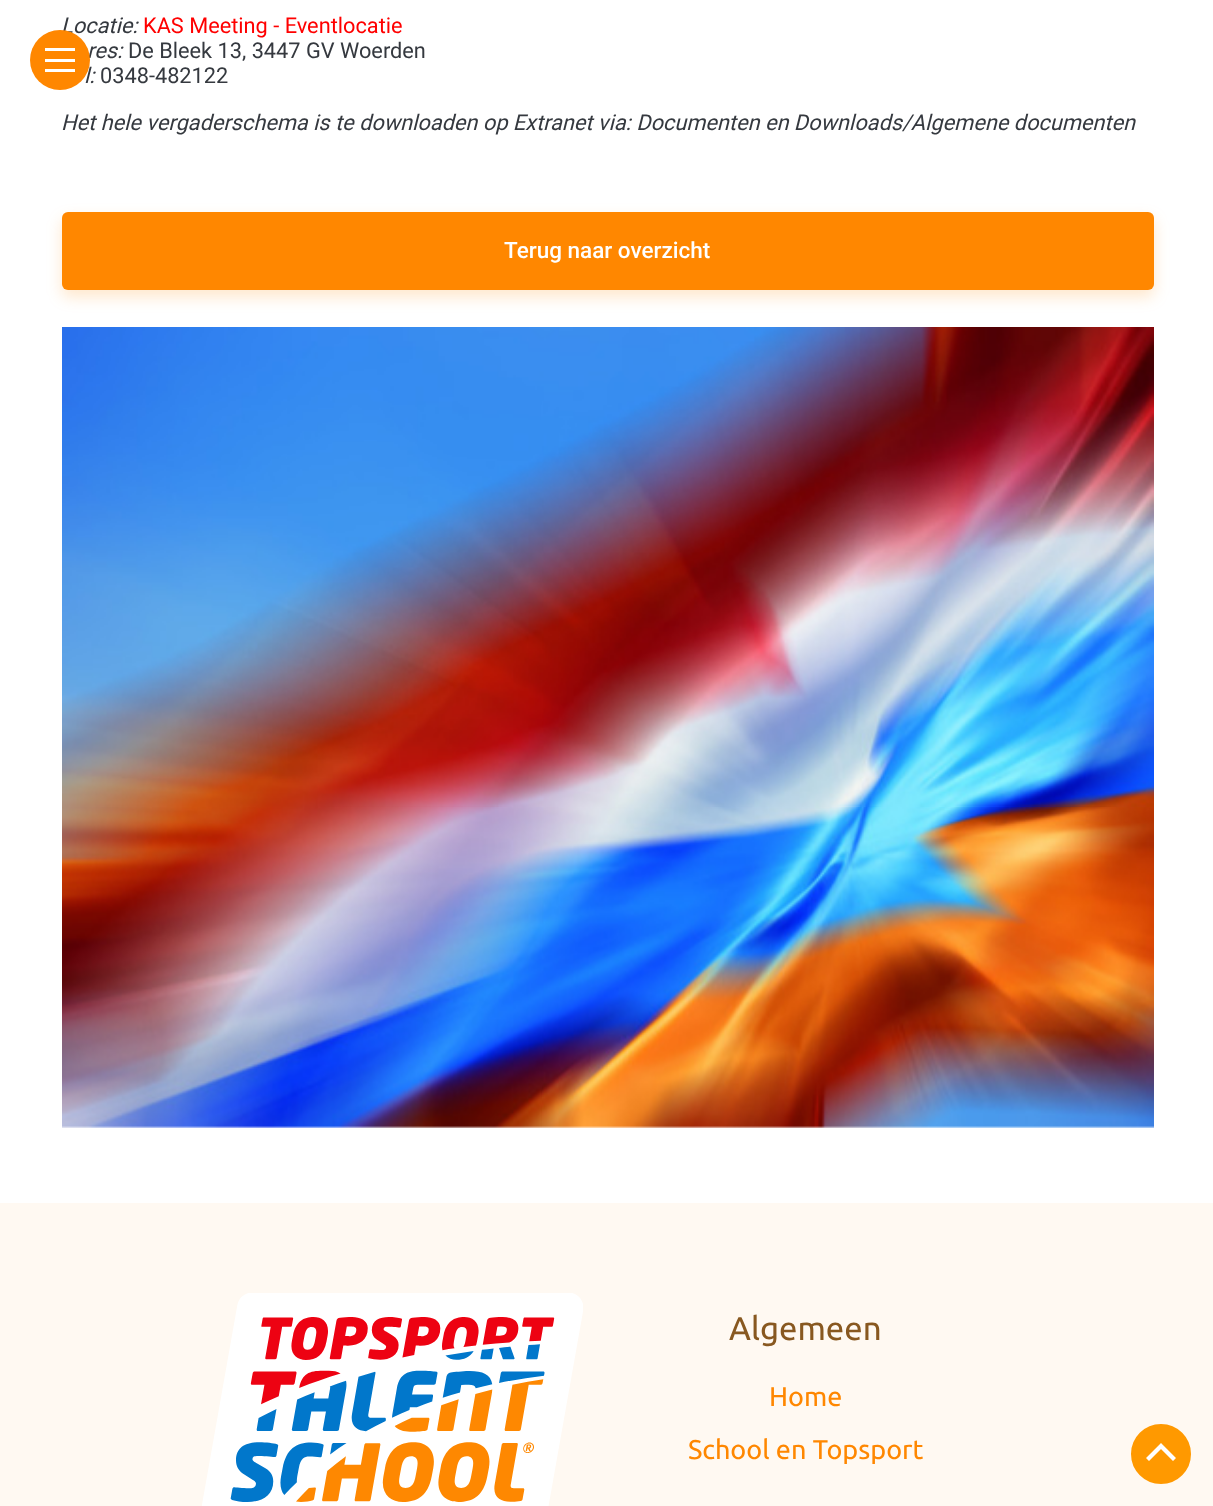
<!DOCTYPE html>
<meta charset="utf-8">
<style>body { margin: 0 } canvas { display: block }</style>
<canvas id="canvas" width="1213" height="1506"></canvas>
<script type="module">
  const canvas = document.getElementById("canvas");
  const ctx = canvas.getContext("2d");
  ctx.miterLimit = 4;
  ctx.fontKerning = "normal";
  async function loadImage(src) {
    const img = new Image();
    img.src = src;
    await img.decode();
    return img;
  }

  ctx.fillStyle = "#ffffff";
  ctx.fillRect(0, 0, 1213, 1506);
  ctx.font = "italic 21.75px Roboto";
  ctx.fillStyle = "#35393f";
  ctx.fillText("Locatie:", 61, 33);
  ctx.fillText("res:", 87, 58);
  ctx.fillText("l:", 84, 83);
  ctx.fillStyle = "#ff8700";
  ctx.beginPath();
  ctx.arc(60, 60, 30, 0, Math.PI * 2);
  ctx.fill();
  ctx.fillStyle = "#ffffff";
  ctx.fillRect(45, 59, 30, 3);
  ctx.fillRect(45, 48, 30, 3);
  ctx.fillRect(45, 69, 30, 3);
  ctx.font = "21.75px Roboto";
  ctx.fillStyle = "#ff0000";
  ctx.fillText("KAS Meeting - Eventlocatie", 143, 33);
  ctx.fillStyle = "#35393f";
  ctx.fillText("De Bleek 13, 3447 GV Woerden", 128, 58);
  ctx.fillText("0348-482122", 100, 83);
  ctx.font = "italic 21.75px Roboto";
  ctx.fillText("Het hele vergaderschema is te downloaden op Extranet via: Documenten en Downloads/Algemene documenten", 61, 130);
  ctx.fillStyle = "rgba(255, 135, 0, 0.2)";
  ctx.filter = "blur(7.5px)";
  ctx.beginPath();
  ctx.roundRect(62, 219, 1092, 78, 6);
  ctx.fill();
  ctx.filter = "none";
  ctx.fillStyle = "#ff8700";
  ctx.beginPath();
  ctx.roundRect(62, 212, 1092, 78, 6);
  ctx.fill();
  ctx.font = "500 22.5px Roboto";
  ctx.fillStyle = "#ffffff";
  ctx.fillText("Terug naar overzicht", 504, 258);
  ctx.drawImage(await loadImage("img1.png"), 62, 327, 1092, 801);
  ctx.fillStyle = "#fff9f2";
  ctx.fillRect(0, 1203, 1213, 303);
  ctx.drawImage(await loadImage("img2.png"), 202, 1293, 381, 213);
  ctx.font = "33px Ubuntu";
  ctx.fillStyle = "#885820";
  ctx.fillText("Algemeen", 729, 1340);
  ctx.font = "27px Ubuntu";
  ctx.fillStyle = "#ff8700";
  ctx.fillText("Home", 769, 1406);
  ctx.fillText("School en Topsport", 688, 1459);
  ctx.fillStyle = "#ff9900";
  ctx.beginPath();
  ctx.arc(1161, 1454, 28.5, 0, Math.PI * 2);
  ctx.fill();
  ctx.strokeStyle = "#ff9900";
  ctx.lineWidth = 3;
  ctx.stroke();
  ctx.fillStyle = "#ffffff";
  ctx.beginPath();
  ctx.moveTo(1149, 1461);
  ctx.lineTo(1146, 1458);
  ctx.lineTo(1161, 1443);
  ctx.lineTo(1164, 1446);
  ctx.closePath();
  ctx.moveTo(1173, 1461);
  ctx.lineTo(1158, 1446);
  ctx.lineTo(1161, 1443);
  ctx.lineTo(1176, 1458);
  ctx.closePath();
  ctx.fill();
</script>
